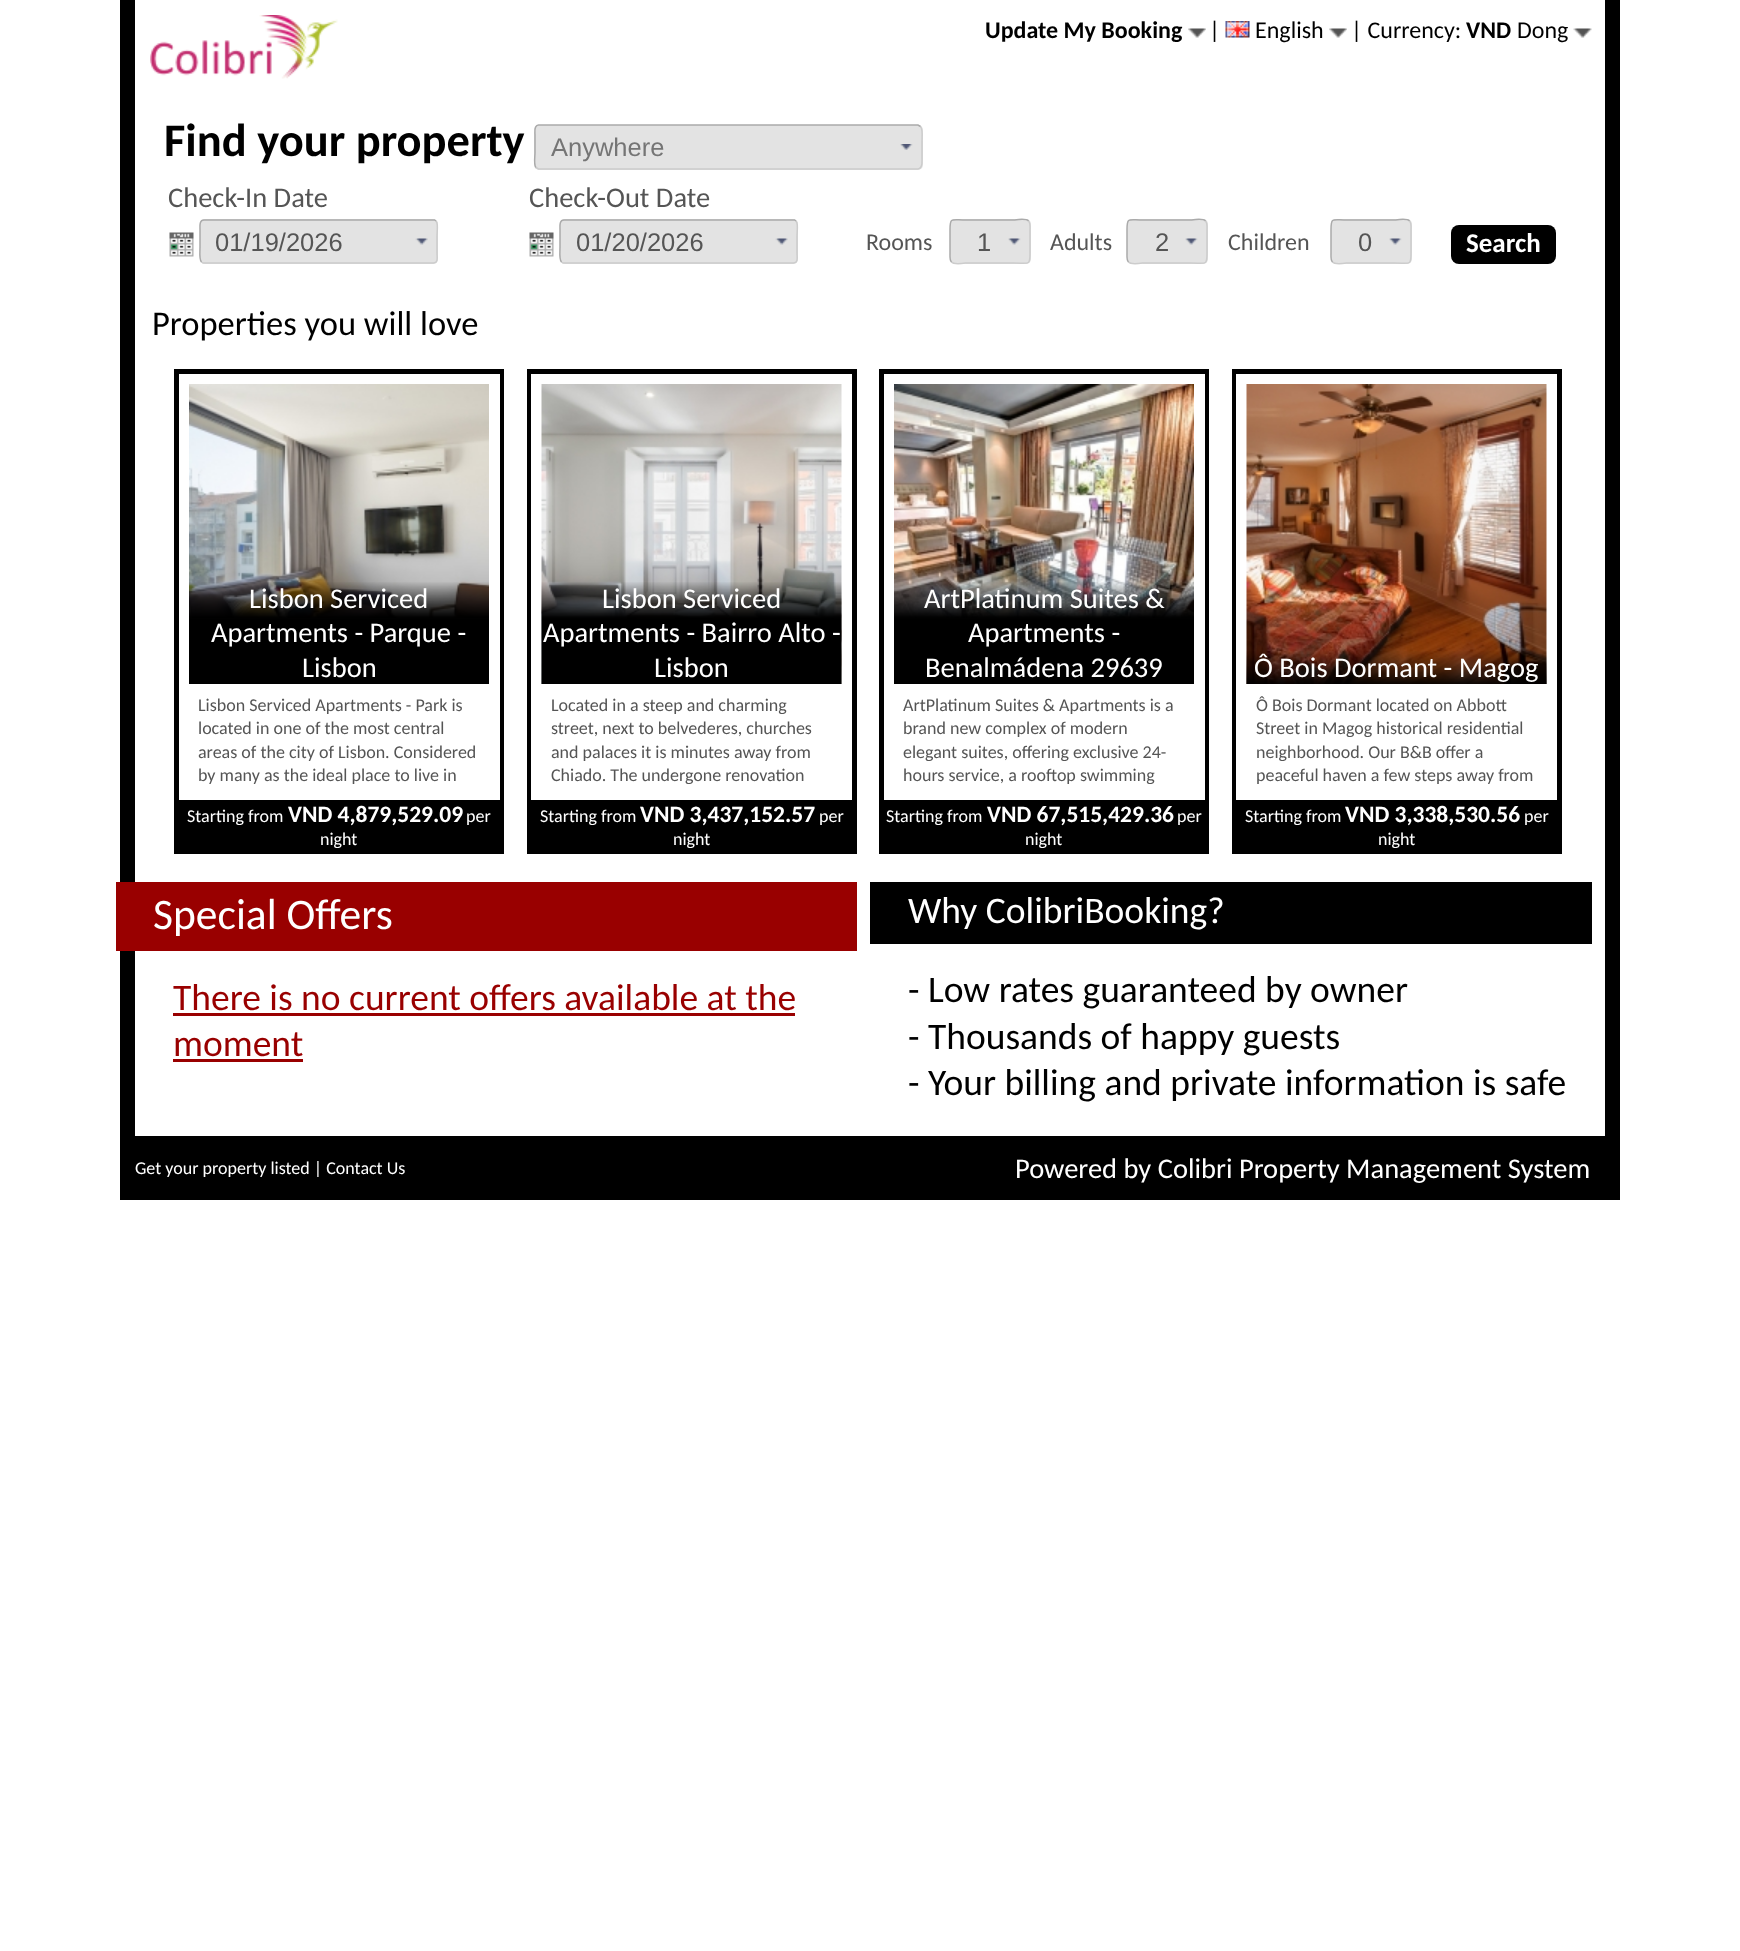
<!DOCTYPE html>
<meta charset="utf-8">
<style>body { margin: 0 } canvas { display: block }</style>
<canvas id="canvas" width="1740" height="1951"></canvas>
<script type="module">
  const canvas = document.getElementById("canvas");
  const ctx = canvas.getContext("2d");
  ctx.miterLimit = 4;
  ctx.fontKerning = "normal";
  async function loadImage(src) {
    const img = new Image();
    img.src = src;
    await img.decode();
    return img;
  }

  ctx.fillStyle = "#ffffff";
  ctx.fillRect(0, 0, 1740, 1951);
  ctx.fillStyle = "#000000";
  ctx.fillRect(1605, 0, 15, 1200);
  ctx.fillRect(120, 0, 15, 1200);
  ctx.drawImage(await loadImage("img1.png"), 150, 15, 188, 64);
  ctx.font = "bold 24px Carlito";
  ctx.fillText("Update My Booking", 985, 38);
  ctx.drawImage(await loadImage("img2.png"), 1188, 28, 18, 10);
  ctx.font = "24px Carlito";
  ctx.fillText("|", 1209, 38);
  ctx.drawImage(await loadImage("img3.png"), 1225, 21, 25, 17);
  ctx.fillText("English", 1255, 38);
  ctx.drawImage(await loadImage("img2.png"), 1329, 28, 18, 10);
  ctx.fillText("| Currency:", 1351, 38);
  ctx.font = "bold 24px Carlito";
  ctx.fillText("VND", 1466, 38);
  ctx.font = "24px Carlito";
  ctx.fillText("Dong", 1517, 38);
  ctx.drawImage(await loadImage("img4.png"), 1573, 28, 19, 10);
  ctx.font = "bold 46.5px Carlito";
  ctx.fillText("Find your property", 164, 156);
  ctx.fillStyle = "#e3e3e3";
  ctx.beginPath();
  ctx.roundRect(534, 125, 389, 45, 5);
  ctx.fill();
  ctx.drawImage(await loadImage("img5.png"), 900, 144, 13, 6);
  ctx.beginPath();
  ctx.moveTo(920.5, 126.5);
  ctx.bezierCurveTo(923, 129, 922, 138, 922, 141);
  ctx.lineTo(922, 159);
  ctx.bezierCurveTo(922, 162, 923, 168.5, 918, 169);
  ctx.lineTo(538.5, 169);
  ctx.lineTo(536, 167.5);
  ctx.strokeStyle = "#cccccc";
  ctx.lineWidth = 1.5;
  ctx.stroke();
  ctx.beginPath();
  ctx.moveTo(536, 167.5);
  ctx.bezierCurveTo(533.5, 165, 535, 156, 535, 153);
  ctx.lineTo(535, 135);
  ctx.bezierCurveTo(535, 132, 533.5, 125.5, 538.5, 125);
  ctx.lineTo(918, 125);
  ctx.lineTo(920.5, 126.5);
  ctx.strokeStyle = "#aaaaaa";
  ctx.stroke();
  ctx.font = "25.5px Liberation Sans";
  ctx.fillStyle = "#757575";
  ctx.fillText("Anywhere", 551, 156);
  ctx.font = "28.5px Carlito";
  ctx.fillStyle = "#555555";
  ctx.fillText("Check-In Date", 168, 207);
  ctx.fillText("Check-Out Date", 529, 207);
  ctx.fillStyle = "#000000";
  ctx.beginPath();
  ctx.roundRect(1451, 225, 105, 39, 8);
  ctx.fill();
  ctx.font = "bold 27px Carlito";
  ctx.fillStyle = "#ffffff";
  ctx.fillText("Search", 1466, 252);
  ctx.drawImage(await loadImage("img6.png"), 169, 232, 25, 25);
  ctx.fillStyle = "#e3e3e3";
  ctx.beginPath();
  ctx.roundRect(200, 219, 238, 45, 5);
  ctx.fill();
  ctx.drawImage(await loadImage("img7.png"), 415, 238, 13, 7);
  ctx.beginPath();
  ctx.moveTo(436, 221);
  ctx.bezierCurveTo(438.5, 223.5, 437, 232.5, 437, 235.5);
  ctx.lineTo(437, 253.5);
  ctx.bezierCurveTo(437, 256.5, 438.5, 263, 433.5, 263);
  ctx.lineTo(203, 263);
  ctx.lineTo(201.5, 262);
  ctx.strokeStyle = "#cccccc";
  ctx.stroke();
  ctx.beginPath();
  ctx.moveTo(201.5, 262);
  ctx.bezierCurveTo(199, 259.5, 200, 250.5, 200, 247.5);
  ctx.lineTo(200, 229.5);
  ctx.bezierCurveTo(200, 226.5, 199, 220, 204, 220);
  ctx.lineTo(434.5, 220);
  ctx.lineTo(436, 221);
  ctx.strokeStyle = "#aaaaaa";
  ctx.stroke();
  ctx.font = "25.5px Liberation Sans";
  ctx.fillStyle = "#555555";
  ctx.fillText("01/19/2026", 215, 251);
  ctx.drawImage(await loadImage("img8.png"), 529, 232, 25, 25);
  ctx.fillStyle = "#e3e3e3";
  ctx.beginPath();
  ctx.roundRect(560, 219, 238, 45, 5);
  ctx.fill();
  ctx.drawImage(await loadImage("img9.png"), 775, 238, 13, 7);
  ctx.beginPath();
  ctx.moveTo(796, 221);
  ctx.bezierCurveTo(798.5, 223.5, 797, 232.5, 797, 235.5);
  ctx.lineTo(797, 253.5);
  ctx.bezierCurveTo(797, 256.5, 798.5, 263, 793.5, 263);
  ctx.lineTo(563, 263);
  ctx.lineTo(561.5, 262);
  ctx.strokeStyle = "#cccccc";
  ctx.stroke();
  ctx.beginPath();
  ctx.moveTo(561.5, 262);
  ctx.bezierCurveTo(559, 259.5, 560, 250.5, 560, 247.5);
  ctx.lineTo(560, 229.5);
  ctx.bezierCurveTo(560, 226.5, 559, 220, 564, 220);
  ctx.lineTo(794.5, 220);
  ctx.lineTo(796, 221);
  ctx.strokeStyle = "#aaaaaa";
  ctx.stroke();
  ctx.fillStyle = "#555555";
  ctx.fillText("01/20/2026", 576, 251);
  ctx.font = "24px Carlito";
  ctx.fillText("Rooms", 866, 250);
  ctx.fillStyle = "#e3e3e3";
  ctx.beginPath();
  ctx.roundRect(950, 219, 81, 45, 5);
  ctx.fill();
  ctx.drawImage(await loadImage("img10.png"), 1008, 238, 13, 7);
  ctx.beginPath();
  ctx.moveTo(1028.5, 221);
  ctx.bezierCurveTo(1030.5, 223, 1030, 227.5, 1030, 229.5);
  ctx.lineTo(1030, 253.5);
  ctx.bezierCurveTo(1030, 266.5, 1028, 263, 1014, 263);
  ctx.lineTo(966, 263);
  ctx.bezierCurveTo(965.5, 263, 954, 265, 951.5, 262);
  ctx.strokeStyle = "#cccccc";
  ctx.stroke();
  ctx.beginPath();
  ctx.moveTo(951.5, 262);
  ctx.bezierCurveTo(949.5, 260, 950, 255.5, 950, 253.5);
  ctx.lineTo(950, 229.5);
  ctx.bezierCurveTo(950, 216.5, 952, 220, 966, 220);
  ctx.lineTo(1014, 220);
  ctx.bezierCurveTo(1014.5, 220, 1026, 218, 1028.5, 221);
  ctx.strokeStyle = "#aaaaaa";
  ctx.stroke();
  ctx.font = "25.5px Liberation Sans";
  ctx.fillStyle = "#555555";
  ctx.fillText("1", 977, 251);
  ctx.font = "24px Carlito";
  ctx.fillText("Adults", 1050, 250);
  ctx.fillStyle = "#e3e3e3";
  ctx.beginPath();
  ctx.roundRect(1127, 219, 81, 45, 5);
  ctx.fill();
  ctx.drawImage(await loadImage("img11.png"), 1185, 238, 13, 7);
  ctx.beginPath();
  ctx.moveTo(1205.5, 221);
  ctx.bezierCurveTo(1207.5, 223, 1207, 227.5, 1207, 229.5);
  ctx.lineTo(1207, 253.5);
  ctx.bezierCurveTo(1207, 266.5, 1205, 263, 1191, 263);
  ctx.lineTo(1143, 263);
  ctx.bezierCurveTo(1142.5, 263, 1131, 265, 1128.5, 262);
  ctx.strokeStyle = "#cccccc";
  ctx.stroke();
  ctx.beginPath();
  ctx.moveTo(1128.5, 262);
  ctx.bezierCurveTo(1126.5, 260, 1127, 255.5, 1127, 253.5);
  ctx.lineTo(1127, 229.5);
  ctx.bezierCurveTo(1127, 216.5, 1129, 220, 1143, 220);
  ctx.lineTo(1191, 220);
  ctx.bezierCurveTo(1191.5, 220, 1203, 218, 1205.5, 221);
  ctx.strokeStyle = "#aaaaaa";
  ctx.stroke();
  ctx.font = "25.5px Liberation Sans";
  ctx.fillStyle = "#555555";
  ctx.fillText("2", 1155, 251);
  ctx.font = "24px Carlito";
  ctx.fillText("Children", 1228, 250);
  ctx.fillStyle = "#e3e3e3";
  ctx.beginPath();
  ctx.roundRect(1331, 219, 81, 45, 5);
  ctx.fill();
  ctx.drawImage(await loadImage("img10.png"), 1389, 238, 13, 7);
  ctx.beginPath();
  ctx.moveTo(1409.5, 221);
  ctx.bezierCurveTo(1411.5, 223, 1411, 227.5, 1411, 229.5);
  ctx.lineTo(1411, 253.5);
  ctx.bezierCurveTo(1411, 266.5, 1409, 263, 1395, 263);
  ctx.lineTo(1347, 263);
  ctx.bezierCurveTo(1346.5, 263, 1335, 265, 1332.5, 262);
  ctx.strokeStyle = "#cccccc";
  ctx.stroke();
  ctx.beginPath();
  ctx.moveTo(1332.5, 262);
  ctx.bezierCurveTo(1330.5, 260, 1331, 255.5, 1331, 253.5);
  ctx.lineTo(1331, 229.5);
  ctx.bezierCurveTo(1331, 216.5, 1333, 220, 1347, 220);
  ctx.lineTo(1395, 220);
  ctx.bezierCurveTo(1395.5, 220, 1407, 218, 1409.5, 221);
  ctx.strokeStyle = "#aaaaaa";
  ctx.stroke();
  ctx.font = "25.5px Liberation Sans";
  ctx.fillStyle = "#555555";
  ctx.fillText("0", 1358, 251);
  ctx.font = "34.5px Carlito";
  ctx.fillStyle = "#000000";
  ctx.fillText("Properties you will love", 152, 335);
  ctx.strokeStyle = "#000000";
  ctx.lineWidth = 5;
  ctx.strokeRect(176.5, 371.5, 325, 480);
  ctx.fillStyle = "#ffffff";
  ctx.fillRect(499, 374, 1, 426);
  ctx.drawImage(await loadImage("img12.png"), 189, 384, 300, 234);
  ctx.drawImage(await loadImage("img13.png"), 189, 582, 300, 102);
  ctx.font = "28.5px Carlito";
  ctx.fillText("Lisbon Serviced", 249, 608);
  ctx.fillText("Apartments - Parque -", 211, 642);
  ctx.fillText("Lisbon", 302, 677);
  ctx.font = "18px Carlito";
  ctx.fillStyle = "#555555";
  ctx.fillText("Lisbon Serviced Apartments - Park is", 198, 711);
  ctx.fillText("located in one of the most central", 198, 734);
  ctx.fillText("areas of the city of Lisbon. Considered", 198, 758);
  ctx.fillText("by many as the ideal place to live in", 198, 781);
  ctx.fillStyle = "#000000";
  ctx.fillRect(179, 800, 320, 49);
  ctx.fillStyle = "#ffffff";
  ctx.fillText("Starting from", 187, 822);
  ctx.font = "bold 23.5px Carlito";
  ctx.fillText("VND 4,879,529.09", 288, 822);
  ctx.font = "18px Carlito";
  ctx.fillText("per", 466, 822);
  ctx.fillText("night", 320, 845);
  ctx.strokeRect(529.5, 371.5, 325, 480);
  ctx.fillRect(531, 374, 1, 426);
  ctx.drawImage(await loadImage("img14.png"), 541, 384, 301, 300);
  ctx.drawImage(await loadImage("img15.png"), 541, 582, 301, 102);
  ctx.font = "28.5px Carlito";
  ctx.fillText("Lisbon Serviced", 602, 608);
  ctx.fillText("Apartments - Bairro Alto -", 543, 642);
  ctx.fillText("Lisbon", 654, 677);
  ctx.font = "18px Carlito";
  ctx.fillStyle = "#555555";
  ctx.fillText("Located in a steep and charming", 551, 711);
  ctx.fillText("street, next to belvederes, churches", 551, 734);
  ctx.fillText("and palaces it is minutes away from", 551, 758);
  ctx.fillText("Chiado. The undergone renovation", 551, 781);
  ctx.fillStyle = "#000000";
  ctx.fillRect(532, 800, 320, 49);
  ctx.fillStyle = "#ffffff";
  ctx.fillText("Starting from", 540, 822);
  ctx.font = "bold 23.5px Carlito";
  ctx.fillText("VND 3,437,152.57", 640, 822);
  ctx.font = "18px Carlito";
  ctx.fillText("per", 819, 822);
  ctx.fillText("night", 673, 845);
  ctx.strokeRect(881.5, 371.5, 325, 480);
  ctx.fillRect(1204, 374, 1, 426);
  ctx.drawImage(await loadImage("img16.png"), 894, 384, 300, 234);
  ctx.drawImage(await loadImage("img17.png"), 894, 582, 300, 102);
  ctx.font = "28.5px Carlito";
  ctx.fillText("ArtPlatinum Suites &", 924, 608);
  ctx.fillText("Apartments -", 968, 642);
  ctx.fillText("Benalmádena 29639", 925, 677);
  ctx.font = "18px Carlito";
  ctx.fillStyle = "#555555";
  ctx.fillText("ArtPlatinum Suites & Apartments is a", 903, 711);
  ctx.fillText("brand new complex of modern", 903, 734);
  ctx.fillText("elegant suites, offering exclusive 24-", 903, 758);
  ctx.fillText("hours service, a rooftop swimming", 903, 781);
  ctx.fillStyle = "#000000";
  ctx.fillRect(884, 800, 320, 49);
  ctx.fillStyle = "#ffffff";
  ctx.fillText("Starting from", 886, 822);
  ctx.font = "bold 23.5px Carlito";
  ctx.fillText("VND 67,515,429.36", 987, 822);
  ctx.font = "18px Carlito";
  ctx.fillText("per", 1177, 822);
  ctx.fillText("night", 1025, 845);
  ctx.strokeRect(1234.5, 371.5, 325, 480);
  ctx.fillRect(1236, 374, 1, 426);
  ctx.drawImage(await loadImage("img18.png"), 1246, 384, 301, 300);
  ctx.drawImage(await loadImage("img19.png"), 1246, 651, 301, 33);
  ctx.font = "28.5px Carlito";
  ctx.fillText("Ô Bois Dormant - Magog", 1254, 677);
  ctx.font = "18px Carlito";
  ctx.fillStyle = "#555555";
  ctx.fillText("Ô Bois Dormant located on Abbott", 1256, 711);
  ctx.fillText("Street in Magog historical residential", 1256, 734);
  ctx.fillText("neighborhood. Our B&B offer a", 1256, 758);
  ctx.fillText("peaceful haven a few steps away from", 1256, 781);
  ctx.fillStyle = "#000000";
  ctx.fillRect(1237, 800, 320, 49);
  ctx.fillStyle = "#ffffff";
  ctx.fillText("Starting from", 1245, 822);
  ctx.font = "bold 23.5px Carlito";
  ctx.fillText("VND 3,338,530.56", 1345, 822);
  ctx.font = "18px Carlito";
  ctx.fillText("per", 1524, 822);
  ctx.fillText("night", 1378, 845);
  ctx.fillStyle = "#990000";
  ctx.fillRect(116, 882, 741, 69);
  ctx.font = "43.5px Carlito";
  ctx.fillStyle = "#ffffff";
  ctx.fillText("Special Offers", 153, 929);
  ctx.font = "37.5px Carlito";
  ctx.fillStyle = "#990000";
  ctx.fillText("There is no current offers available at the", 173, 1010);
  ctx.fillRect(173, 1013, 622, 3);
  ctx.fillText("moment", 173, 1056);
  ctx.fillRect(173, 1059, 130, 3);
  ctx.fillStyle = "#000000";
  ctx.fillRect(870, 882, 722, 62);
  ctx.fillStyle = "#ffffff";
  ctx.fillText("Why ColibriBooking?", 908, 923);
  ctx.fillStyle = "#000000";
  ctx.fillText("- Low rates guaranteed by owner", 908, 1002);
  ctx.fillText("- Thousands of happy guests", 908, 1049);
  ctx.fillText("- Your billing and private information is safe", 908, 1095);
  ctx.fillRect(135, 1136, 1470, 64);
  ctx.font = "18px Carlito";
  ctx.fillStyle = "#ffffff";
  ctx.fillText("Get your property listed | Contact Us", 135, 1174);
  ctx.font = "28.5px Carlito";
  ctx.fillText("Powered by Colibri Property Management System", 1015, 1178);
</script>
